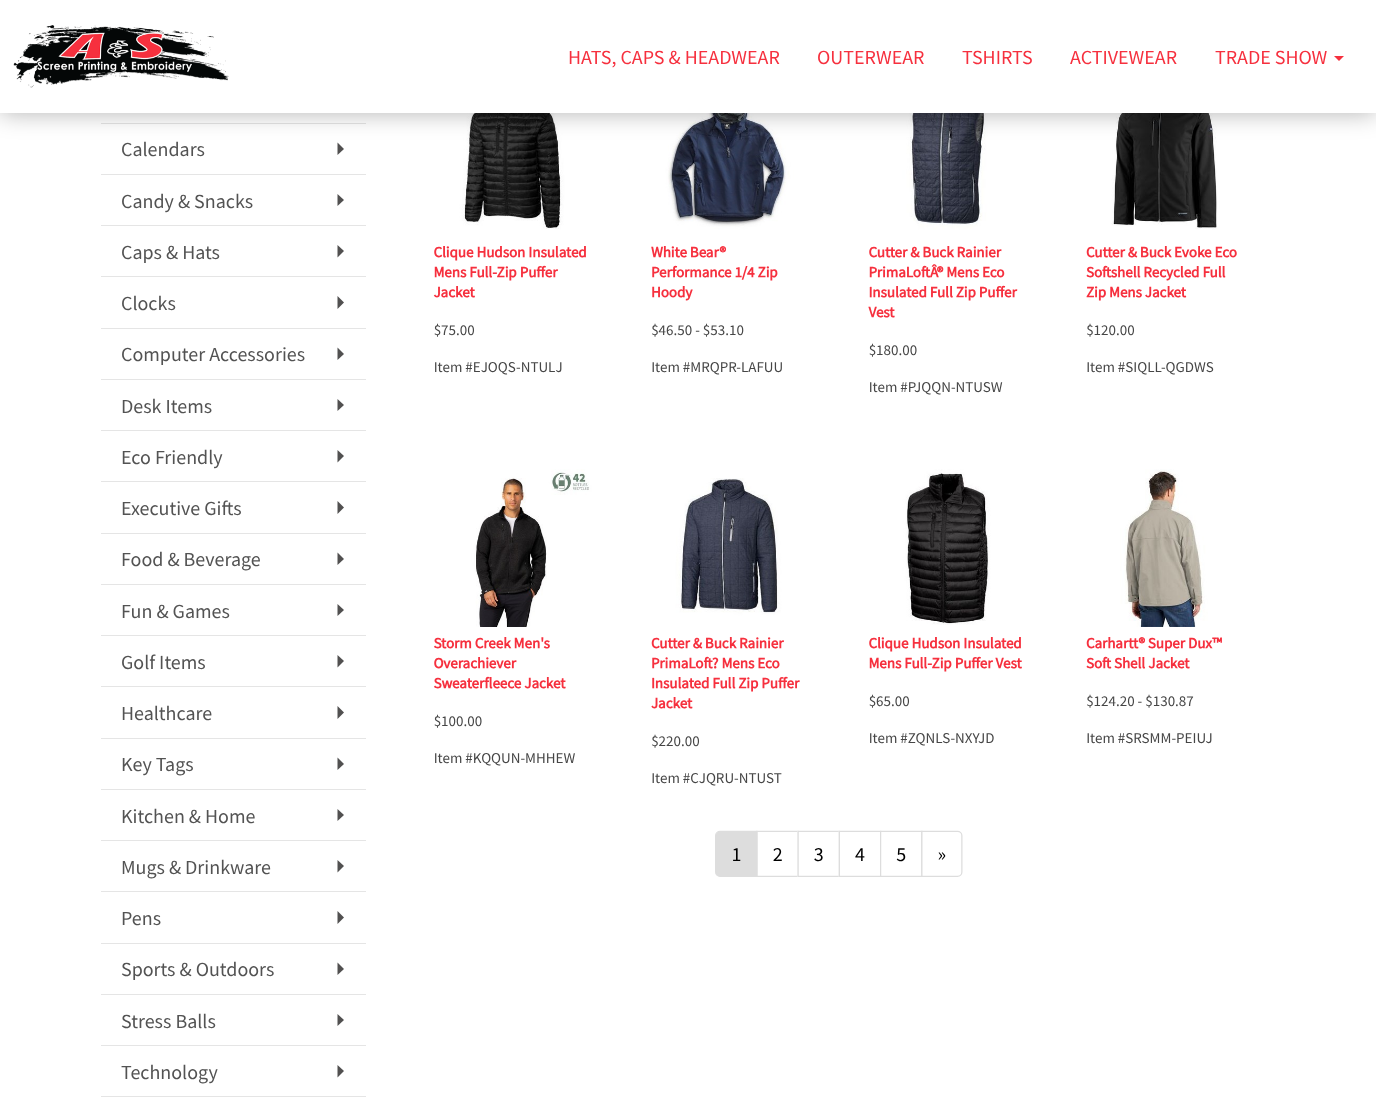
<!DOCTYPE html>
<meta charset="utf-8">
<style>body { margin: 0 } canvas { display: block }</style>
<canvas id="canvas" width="1376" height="1100"></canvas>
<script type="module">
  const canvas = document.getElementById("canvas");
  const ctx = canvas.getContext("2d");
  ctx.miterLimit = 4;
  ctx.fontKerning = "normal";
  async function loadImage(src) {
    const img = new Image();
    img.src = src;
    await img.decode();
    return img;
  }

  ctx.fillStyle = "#ffffff";
  ctx.fillRect(0, 0, 1376, 1100);
  ctx.fillStyle = "#e5e5e5";
  ctx.fillRect(101, 123, 265, 1);
  ctx.fillStyle = "#515050";
  ctx.beginPath();
  ctx.moveTo(337.5, 155);
  ctx.lineTo(337.5, 142.5);
  ctx.lineTo(344, 149);
  ctx.closePath();
  ctx.fill();
  ctx.drawImage(await loadImage("img2.png"), 433, 113, 804, 764);
  ctx.fillStyle = "rgba(0, 0, 0, 0.3)";
  ctx.filter = "blur(12.5px)";
  ctx.beginPath();
  ctx.rect(0, 0, 1376, 113);
  ctx.fill();
  ctx.filter = "none";
  ctx.fillStyle = "#ffffff";
  ctx.fillRect(0, 0, 1376, 113);
  ctx.drawImage(await loadImage("img1.png"), 13, 25, 216, 63);
  ctx.font = "20px Source Sans Pro";
  ctx.fillStyle = "#f6303e";
  ctx.fillText("HATS, CAPS & HEADWEAR", 568, 64);
  ctx.fillText("OUTERWEAR", 817, 64);
  ctx.fillText("TSHIRTS", 962, 64);
  ctx.fillText("ACTIVEWEAR", 1070, 64);
  ctx.fillText("TRADE SHOW", 1215, 64);
  ctx.beginPath();
  ctx.moveTo(1334, 56);
  ctx.lineTo(1344, 56);
  ctx.lineTo(1339, 61);
  ctx.closePath();
  ctx.fill();
  ctx.fillStyle = "#535353";
  ctx.fillText("Calendars", 121, 156);
  ctx.fillStyle = "#e5e5e5";
  ctx.fillRect(101, 174, 265, 1);
  ctx.fillStyle = "#535353";
  ctx.fillText("Candy & Snacks", 121, 208);
  ctx.fillStyle = "#515050";
  ctx.beginPath();
  ctx.moveTo(337.5, 206);
  ctx.lineTo(337.5, 194);
  ctx.lineTo(344, 200);
  ctx.closePath();
  ctx.fill();
  ctx.fillStyle = "#e5e5e5";
  ctx.fillRect(101, 225, 265, 1);
  ctx.fillStyle = "#535353";
  ctx.fillText("Caps & Hats", 121, 259);
  ctx.fillStyle = "#515050";
  ctx.beginPath();
  ctx.moveTo(337.5, 257.5);
  ctx.lineTo(337.5, 245);
  ctx.lineTo(344, 251);
  ctx.closePath();
  ctx.fill();
  ctx.fillStyle = "#e5e5e5";
  ctx.fillRect(101, 276, 265, 1);
  ctx.fillStyle = "#535353";
  ctx.fillText("Clocks", 121, 310);
  ctx.fillStyle = "#515050";
  ctx.beginPath();
  ctx.moveTo(337.5, 309);
  ctx.lineTo(337.5, 296);
  ctx.lineTo(344, 302.5);
  ctx.closePath();
  ctx.fill();
  ctx.fillStyle = "#e5e5e5";
  ctx.fillRect(101, 328, 265, 1);
  ctx.fillStyle = "#535353";
  ctx.fillText("Computer Accessories", 121, 361);
  ctx.fillStyle = "#515050";
  ctx.beginPath();
  ctx.moveTo(337.5, 360);
  ctx.lineTo(337.5, 347.5);
  ctx.lineTo(344, 354);
  ctx.closePath();
  ctx.fill();
  ctx.fillStyle = "#e5e5e5";
  ctx.fillRect(101, 379, 265, 1);
  ctx.fillStyle = "#535353";
  ctx.fillText("Desk Items", 121, 413);
  ctx.fillStyle = "#515050";
  ctx.beginPath();
  ctx.moveTo(337.5, 411);
  ctx.lineTo(337.5, 399);
  ctx.lineTo(344, 405);
  ctx.closePath();
  ctx.fill();
  ctx.fillStyle = "#e5e5e5";
  ctx.fillRect(101, 430, 265, 1);
  ctx.fillStyle = "#535353";
  ctx.fillText("Eco Friendly", 121, 464);
  ctx.fillStyle = "#515050";
  ctx.beginPath();
  ctx.moveTo(337.5, 462.5);
  ctx.lineTo(337.5, 450);
  ctx.lineTo(344, 456);
  ctx.closePath();
  ctx.fill();
  ctx.fillStyle = "#e5e5e5";
  ctx.fillRect(101, 481, 265, 1);
  ctx.fillStyle = "#535353";
  ctx.fillText("Executive Gifts", 121, 515);
  ctx.fillStyle = "#515050";
  ctx.beginPath();
  ctx.moveTo(337.5, 514);
  ctx.lineTo(337.5, 501);
  ctx.lineTo(344, 507.5);
  ctx.closePath();
  ctx.fill();
  ctx.fillStyle = "#e5e5e5";
  ctx.fillRect(101, 533, 265, 1);
  ctx.fillStyle = "#535353";
  ctx.fillText("Food & Beverage", 121, 566);
  ctx.fillStyle = "#515050";
  ctx.beginPath();
  ctx.moveTo(337.5, 565);
  ctx.lineTo(337.5, 552.5);
  ctx.lineTo(344, 559);
  ctx.closePath();
  ctx.fill();
  ctx.fillStyle = "#e5e5e5";
  ctx.fillRect(101, 584, 265, 1);
  ctx.fillStyle = "#535353";
  ctx.fillText("Fun & Games", 121, 618);
  ctx.fillStyle = "#515050";
  ctx.beginPath();
  ctx.moveTo(337.5, 616);
  ctx.lineTo(337.5, 604);
  ctx.lineTo(344, 610);
  ctx.closePath();
  ctx.fill();
  ctx.fillStyle = "#e5e5e5";
  ctx.fillRect(101, 635, 265, 1);
  ctx.fillStyle = "#535353";
  ctx.fillText("Golf Items", 121, 669);
  ctx.fillStyle = "#515050";
  ctx.beginPath();
  ctx.moveTo(337.5, 667.5);
  ctx.lineTo(337.5, 655);
  ctx.lineTo(344, 661);
  ctx.closePath();
  ctx.fill();
  ctx.fillStyle = "#e5e5e5";
  ctx.fillRect(101, 686, 265, 1);
  ctx.fillStyle = "#535353";
  ctx.fillText("Healthcare", 121, 720);
  ctx.fillStyle = "#515050";
  ctx.beginPath();
  ctx.moveTo(337.5, 719);
  ctx.lineTo(337.5, 706);
  ctx.lineTo(344, 712.5);
  ctx.closePath();
  ctx.fill();
  ctx.fillStyle = "#e5e5e5";
  ctx.fillRect(101, 738, 265, 1);
  ctx.fillStyle = "#535353";
  ctx.fillText("Key Tags", 121, 771);
  ctx.fillStyle = "#515050";
  ctx.beginPath();
  ctx.moveTo(337.5, 770);
  ctx.lineTo(337.5, 757.5);
  ctx.lineTo(344, 764);
  ctx.closePath();
  ctx.fill();
  ctx.fillStyle = "#e5e5e5";
  ctx.fillRect(101, 789, 265, 1);
  ctx.fillStyle = "#535353";
  ctx.fillText("Kitchen & Home", 121, 823);
  ctx.fillStyle = "#515050";
  ctx.beginPath();
  ctx.moveTo(337.5, 821);
  ctx.lineTo(337.5, 809);
  ctx.lineTo(344, 815);
  ctx.closePath();
  ctx.fill();
  ctx.fillStyle = "#e5e5e5";
  ctx.fillRect(101, 840, 265, 1);
  ctx.fillStyle = "#535353";
  ctx.fillText("Mugs & Drinkware", 121, 874);
  ctx.fillStyle = "#515050";
  ctx.beginPath();
  ctx.moveTo(337.5, 872.5);
  ctx.lineTo(337.5, 860);
  ctx.lineTo(344, 866);
  ctx.closePath();
  ctx.fill();
  ctx.fillStyle = "#e5e5e5";
  ctx.fillRect(101, 891, 265, 1);
  ctx.fillStyle = "#535353";
  ctx.fillText("Pens", 121, 925);
  ctx.fillStyle = "#515050";
  ctx.beginPath();
  ctx.moveTo(337.5, 924);
  ctx.lineTo(337.5, 911);
  ctx.lineTo(344, 917.5);
  ctx.closePath();
  ctx.fill();
  ctx.fillStyle = "#e5e5e5";
  ctx.fillRect(101, 943, 265, 1);
  ctx.fillStyle = "#535353";
  ctx.fillText("Sports & Outdoors", 121, 976);
  ctx.fillStyle = "#515050";
  ctx.beginPath();
  ctx.moveTo(337.5, 975);
  ctx.lineTo(337.5, 962.5);
  ctx.lineTo(344, 969);
  ctx.closePath();
  ctx.fill();
  ctx.fillStyle = "#e5e5e5";
  ctx.fillRect(101, 994, 265, 1);
  ctx.fillStyle = "#535353";
  ctx.fillText("Stress Balls", 121, 1028);
  ctx.fillStyle = "#515050";
  ctx.beginPath();
  ctx.moveTo(337.5, 1026);
  ctx.lineTo(337.5, 1014);
  ctx.lineTo(344, 1020);
  ctx.closePath();
  ctx.fill();
  ctx.fillStyle = "#e5e5e5";
  ctx.fillRect(101, 1045, 265, 1);
  ctx.fillStyle = "#535353";
  ctx.fillText("Technology", 121, 1079);
  ctx.fillStyle = "#515050";
  ctx.beginPath();
  ctx.moveTo(337.5, 1077.5);
  ctx.lineTo(337.5, 1065);
  ctx.lineTo(344, 1071);
  ctx.closePath();
  ctx.fill();
  ctx.fillStyle = "#e5e5e5";
  ctx.fillRect(101, 1096, 265, 1);
</script>
